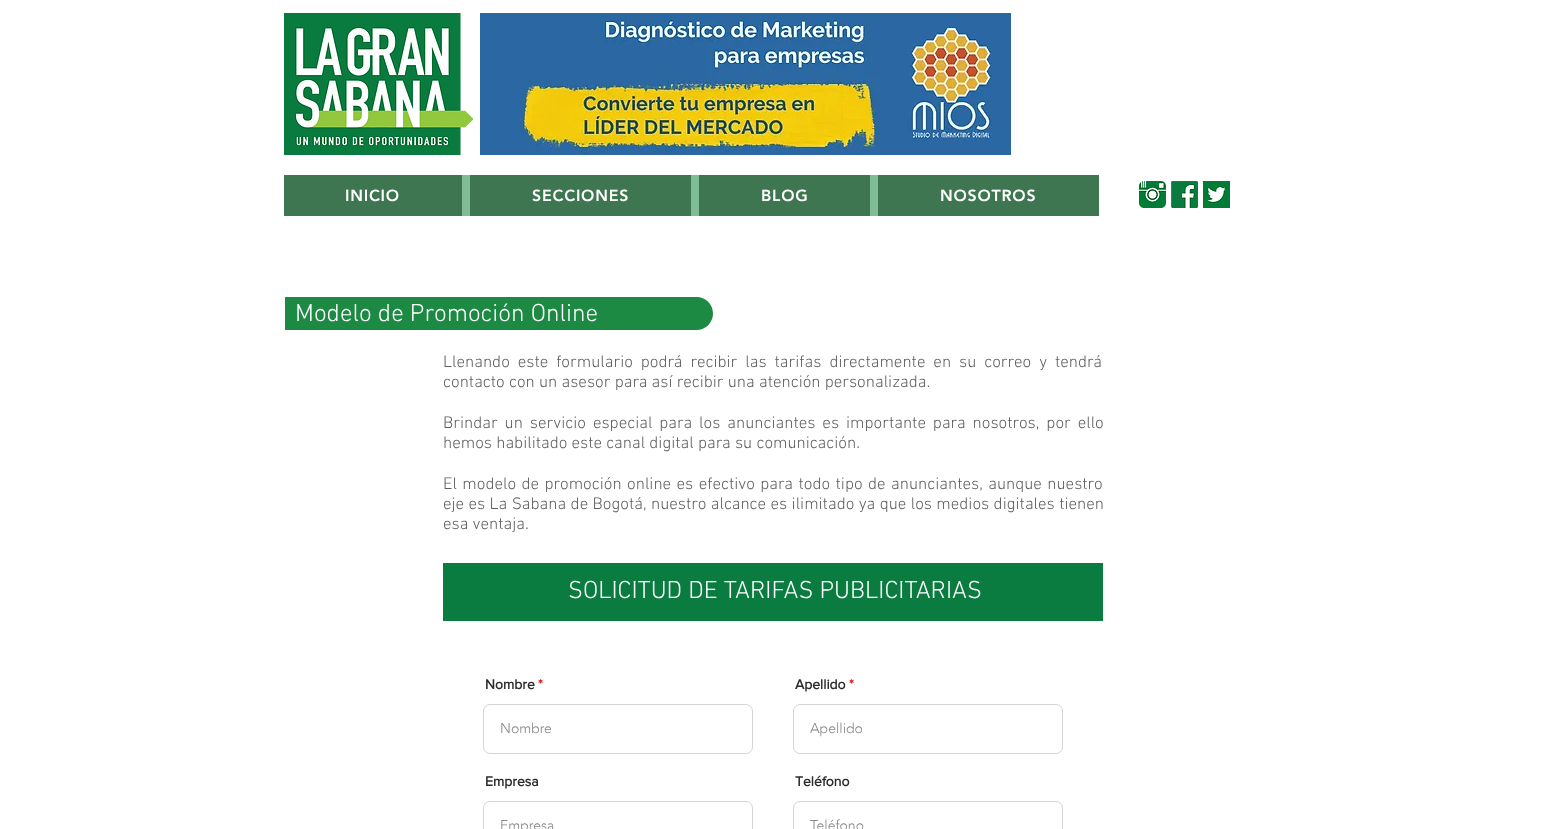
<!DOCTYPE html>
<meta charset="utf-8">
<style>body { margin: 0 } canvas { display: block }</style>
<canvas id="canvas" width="1547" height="829"></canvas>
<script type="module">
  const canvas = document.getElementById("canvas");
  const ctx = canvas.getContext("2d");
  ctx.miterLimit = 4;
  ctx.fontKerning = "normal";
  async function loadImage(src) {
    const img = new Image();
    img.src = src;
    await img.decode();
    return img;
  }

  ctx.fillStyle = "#ffffff";
  ctx.fillRect(0, 0, 1547, 829);
  ctx.drawImage(await loadImage("img1.png"), 284, 13, 189, 142);
  ctx.drawImage(await loadImage("img2.png"), 480, 13, 531, 142);
  ctx.fillStyle = "#80bd96";
  ctx.fillRect(462, 175, 416, 41);
  ctx.fillStyle = "#3f7652";
  ctx.fillRect(284, 175, 178, 41);
  ctx.letterSpacing = "0.75px";
  ctx.font = "900 16px 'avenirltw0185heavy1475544'";
  ctx.fillStyle = "#ffffff";
  ctx.fillText("INICIO", 345, 201);
  ctx.fillStyle = "#3f7652";
  ctx.fillRect(470, 175, 221, 41);
  ctx.fillStyle = "#ffffff";
  ctx.fillText("SECCIONES", 532, 201);
  ctx.fillStyle = "#3f7652";
  ctx.fillRect(699, 175, 171, 41);
  ctx.fillStyle = "#ffffff";
  ctx.fillText("BLOG", 761, 201);
  ctx.fillStyle = "#3f7652";
  ctx.fillRect(878, 175, 221, 41);
  ctx.fillStyle = "#ffffff";
  ctx.fillText("NOSOTROS", 940, 201);
  ctx.drawImage(await loadImage("img3.png"), 1139, 181, 27, 27);
  ctx.drawImage(await loadImage("img4.png"), 1171, 181, 27, 27);
  ctx.drawImage(await loadImage("img5.png"), 1203, 181, 27, 27);
  ctx.fillStyle = "#1c8a43";
  ctx.beginPath();
  ctx.roundRect(285, 297, 428, 33, [0, 16.5, 16.5, 0]);
  ctx.fill();
  ctx.letterSpacing = "0px";
  ctx.font = "300 25px 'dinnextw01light'";
  ctx.fillStyle = "#ffffff";
  ctx.fillText("Modelo de Promoción Online", 295, 321);
  ctx.wordSpacing = "3.75px";
  ctx.font = "300 17px 'dinnextw01light'";
  ctx.fillStyle = "#605e5e";
  ctx.fillText("Llenando este formulario podrá recibir las tarifas directamente en su correo y tendrá", 443, 367);
  ctx.wordSpacing = "0px";
  ctx.fillText("contacto con un asesor para así recibir una atención personalizada.", 443, 387);
  ctx.wordSpacing = "2.75px";
  ctx.fillText("Brindar un servicio especial para los anunciantes es importante para nosotros, por ello", 443, 428);
  ctx.wordSpacing = "0px";
  ctx.fillText("hemos habilitado este canal digital para su comunicación.", 443, 448);
  ctx.wordSpacing = "1.25px";
  ctx.fillText("El modelo de promoción online es efectivo para todo tipo de anunciantes, aunque nuestro", 443, 489);
  ctx.wordSpacing = "0.2px";
  ctx.fillText("eje es La Sabana de Bogotá, nuestro alcance es ilimitado ya que los medios digitales tienen", 443, 509);
  ctx.wordSpacing = "0px";
  ctx.fillText("esa ventaja.", 443, 529);
  ctx.fillStyle = "#0a7c40";
  ctx.fillRect(443, 563, 660, 58);
  ctx.font = "300 25px 'dinnextw01light'";
  ctx.fillStyle = "#ffffff";
  ctx.fillText("SOLICITUD DE TARIFAS PUBLICITARIAS", 568, 598);
  ctx.font = "bold 14px 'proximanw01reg'";
  ctx.fillStyle = "#2b2b2b";
  ctx.fillText("Nombre", 485, 689);
  ctx.fillStyle = "#e21c21";
  ctx.fillText("*", 538, 689);
  ctx.beginPath();
  ctx.roundRect(483.5, 704.5, 269, 49, 6.5);
  ctx.strokeStyle = "#d5d5d5";
  ctx.stroke();
  ctx.font = "300 14px 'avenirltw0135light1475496'";
  ctx.fillStyle = "#878786";
  ctx.fillText("Nombre", 500, 733);
  ctx.font = "bold 14px 'proximanw01reg'";
  ctx.fillStyle = "#2b2b2b";
  ctx.fillText("Apellido", 795, 689);
  ctx.fillStyle = "#e21c21";
  ctx.fillText("*", 849, 689);
  ctx.beginPath();
  ctx.roundRect(793.5, 704.5, 269, 49, 6.5);
  ctx.stroke();
  ctx.font = "300 14px 'avenirltw0135light1475496'";
  ctx.fillStyle = "#878786";
  ctx.fillText("Apellido", 810, 733);
  ctx.font = "bold 14px 'proximanw01reg'";
  ctx.fillStyle = "#2b2b2b";
  ctx.fillText("Empresa", 485, 786);
  ctx.beginPath();
  ctx.roundRect(483.5, 801.5, 269, 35, 6.5);
  ctx.stroke();
  ctx.font = "300 14px 'avenirltw0135light1475496'";
  ctx.fillStyle = "#878786";
  ctx.fillText("Empresa", 500, 830);
  ctx.font = "bold 14px 'proximanw01reg'";
  ctx.fillStyle = "#2b2b2b";
  ctx.fillText("Teléfono", 795, 786);
  ctx.beginPath();
  ctx.roundRect(793.5, 801.5, 269, 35, 6.5);
  ctx.stroke();
  ctx.font = "300 14px 'avenirltw0135light1475496'";
  ctx.fillStyle = "#878786";
  ctx.fillText("Teléfono", 810, 830);
</script>
